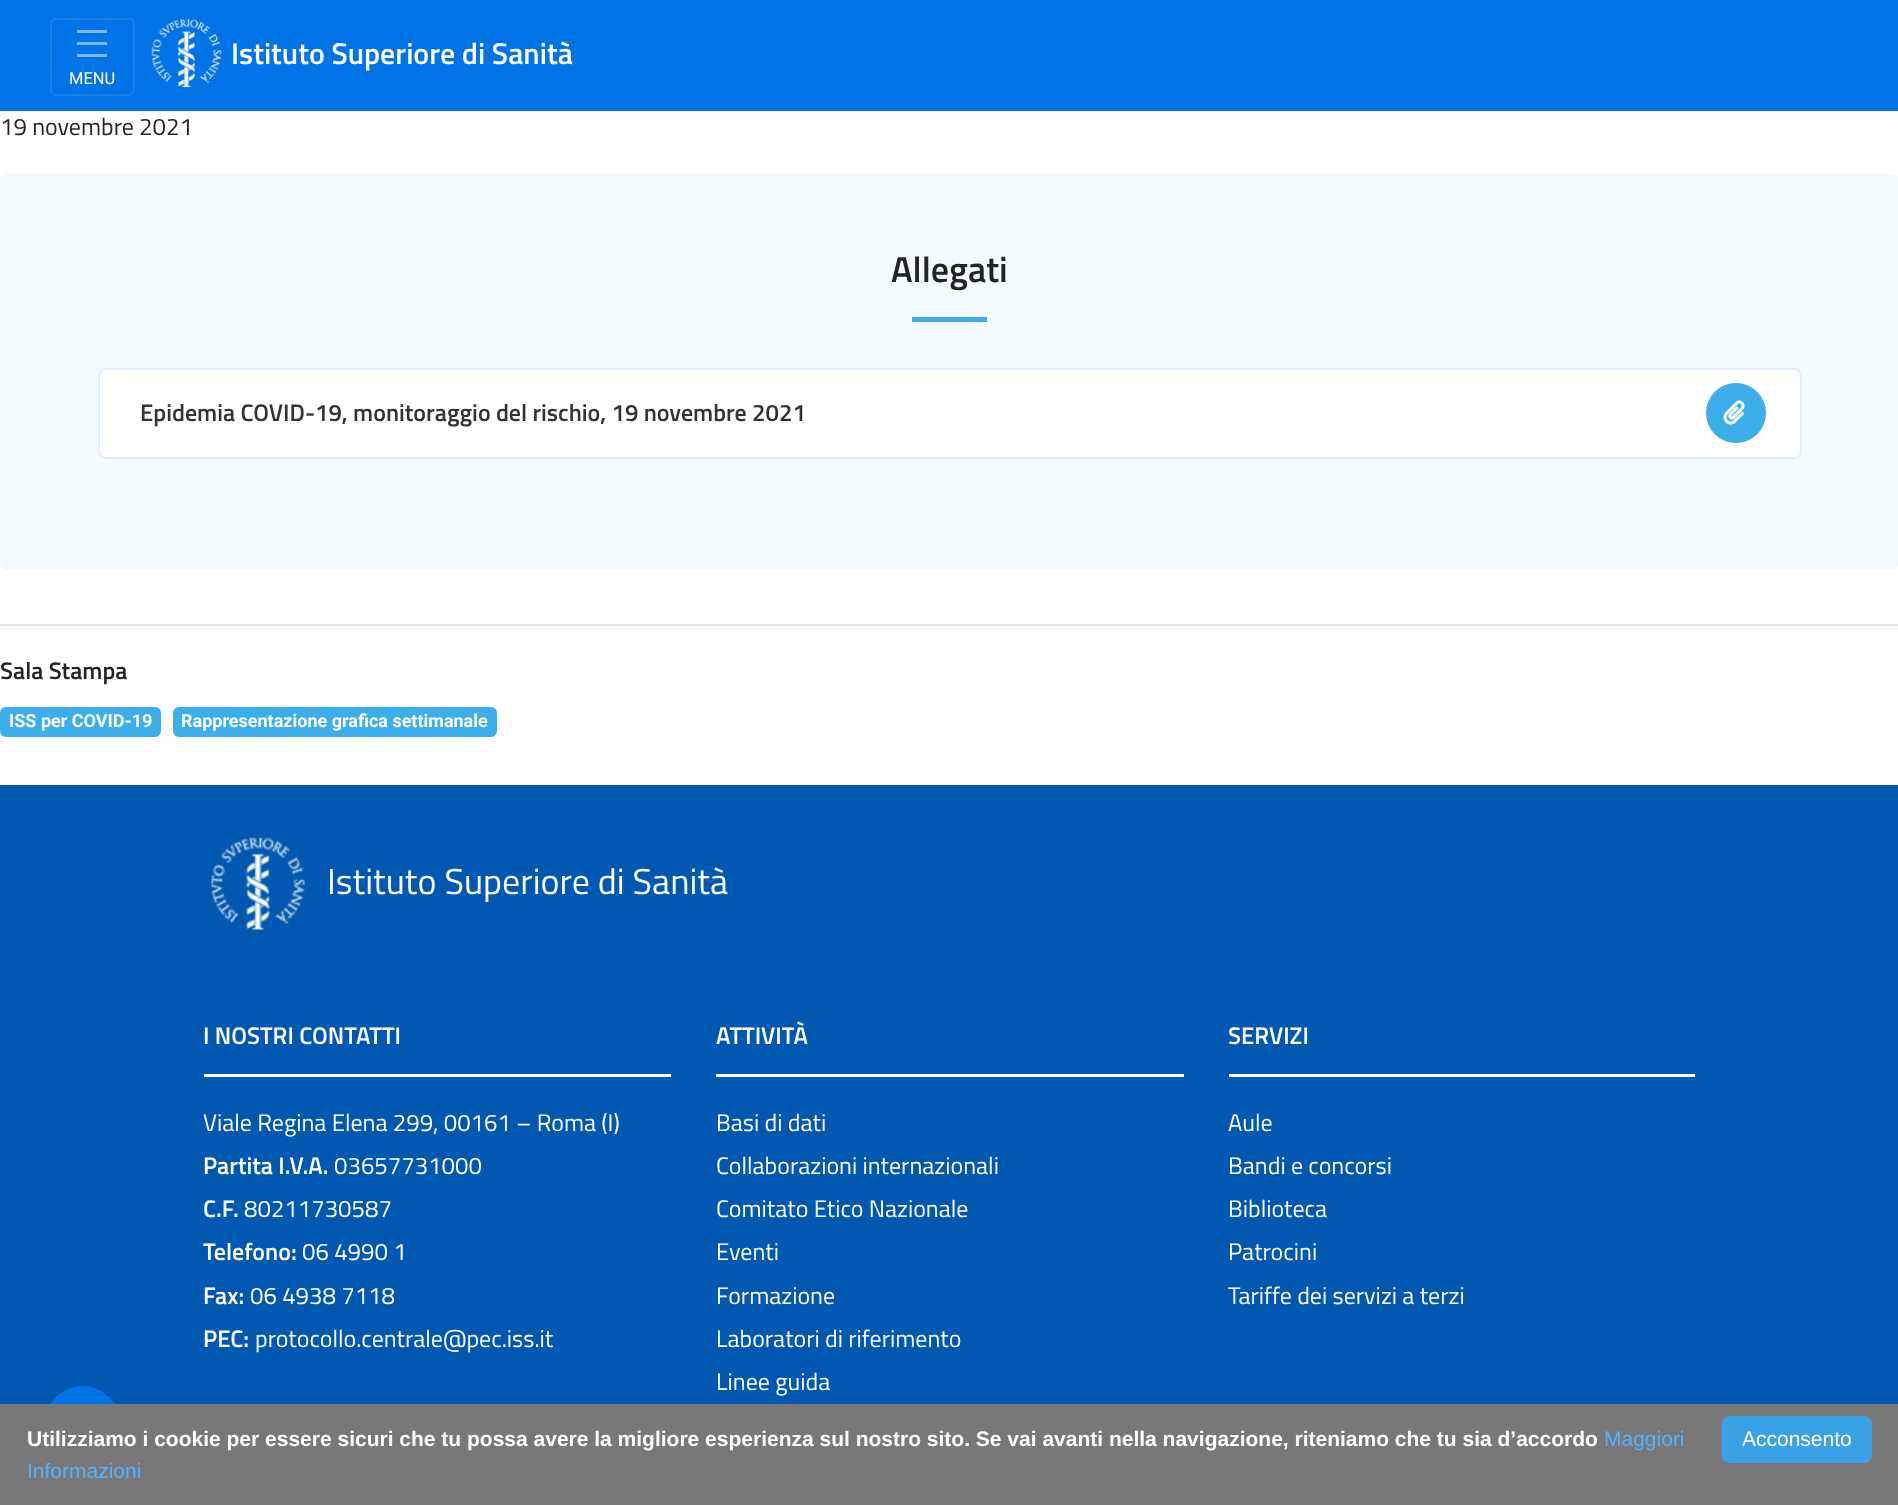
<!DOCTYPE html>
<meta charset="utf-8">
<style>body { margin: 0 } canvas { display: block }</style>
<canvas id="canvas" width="1898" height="1505"></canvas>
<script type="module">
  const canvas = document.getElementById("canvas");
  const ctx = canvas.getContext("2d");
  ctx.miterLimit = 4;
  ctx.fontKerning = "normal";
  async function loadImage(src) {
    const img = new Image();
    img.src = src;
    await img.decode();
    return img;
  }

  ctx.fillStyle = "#ffffff";
  ctx.fillRect(0, 0, 1898, 1505);
  ctx.fillStyle = "#0073e6";
  ctx.fillRect(0, 0, 1898, 111);
  ctx.drawImage(await loadImage("img1.png"), 151, 19, 71, 69);
  ctx.font = "600 30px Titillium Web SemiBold";
  ctx.fillStyle = "#ffffff";
  ctx.fillText("Istituto Superiore di Sanità", 231, 64);
  ctx.beginPath();
  ctx.roundRect(51, 19, 83, 76, 5);
  ctx.strokeStyle = "#1a81e9";
  ctx.lineWidth = 2;
  ctx.stroke();
  ctx.save();
  ctx.beginPath();
  ctx.rect(77, 29, 30, 30);
  ctx.clip();
  ctx.beginPath();
  ctx.moveTo(75, 31.5);
  ctx.lineTo(108, 31.5);
  ctx.moveTo(75, 43.5);
  ctx.lineTo(108, 43.5);
  ctx.moveTo(75, 55.5);
  ctx.lineTo(108, 55.5);
  ctx.strokeStyle = "#80b9f3";
  ctx.lineWidth = 3;
  ctx.lineCap = "round";
  ctx.stroke();
  ctx.restore();
  ctx.font = "16.5px Roboto";
  ctx.fillText("MENU", 69, 84);
  ctx.font = "24px Titillium Web";
  ctx.fillStyle = "#212529";
  ctx.fillText("19 novembre 2021", 0, 135);
  ctx.fillStyle = "#f4fbfe";
  ctx.beginPath();
  ctx.roundRect(0, 173, 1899, 397, 8);
  ctx.fill();
  ctx.font = "600 36px Titillium Web SemiBold";
  ctx.fillStyle = "#212529";
  ctx.fillText("Allegati", 891, 282);
  ctx.fillStyle = "#3caeeb";
  ctx.fillRect(912, 317, 75, 5);
  ctx.fillStyle = "#ffffff";
  ctx.beginPath();
  ctx.roundRect(99, 369, 1702, 89, 7);
  ctx.fill();
  ctx.strokeStyle = "#e2eefd";
  ctx.stroke();
  ctx.font = "600 24px Titillium Web SemiBold";
  ctx.fillStyle = "#333333";
  ctx.fillText("Epidemia COVID-19, monitoraggio del rischio, 19 novembre 2021", 140, 421);
  ctx.fillStyle = "#3caeeb";
  ctx.beginPath();
  ctx.arc(1736, 413, 30, 0, Math.PI * 2);
  ctx.fill();
  ctx.drawImage(await loadImage("img2.png"), 1723, 400, 22, 25);
  ctx.fillStyle = "#e6e6e6";
  ctx.fillRect(0, 624, 1898, 2);
  ctx.fillStyle = "#212529";
  ctx.fillText("Sala Stampa", 0, 679);
  ctx.fillStyle = "#3caeeb";
  ctx.beginPath();
  ctx.roundRect(0, 707, 161, 30, 6);
  ctx.fill();
  ctx.font = "bold 18px Roboto";
  ctx.fillStyle = "#ffffff";
  ctx.fillText("ISS per COVID-19", 9, 727);
  ctx.fillStyle = "#3caeeb";
  ctx.beginPath();
  ctx.roundRect(173, 707, 324, 30, 6);
  ctx.fill();
  ctx.fillStyle = "#ffffff";
  ctx.fillText("Rappresentazione grafica settimanale", 181, 727);
  ctx.fillStyle = "#0158b0";
  ctx.fillRect(0, 785, 1898, 619);
  ctx.drawImage(await loadImage("img3.png"), 211, 837, 94, 93);
  ctx.font = "36px Titillium Web";
  ctx.fillStyle = "#ffffff";
  ctx.fillText("Istituto Superiore di Sanità", 327, 894);
  ctx.font = "600 24px Titillium Web SemiBold";
  ctx.fillText("I NOSTRI CONTATTI", 203, 1044);
  ctx.fillRect(204, 1074, 467, 3);
  ctx.font = "24px Titillium Web";
  ctx.fillText("Viale Regina Elena 299, 00161 – Roma (I)", 203, 1131);
  ctx.font = "600 24px Titillium Web SemiBold";
  ctx.fillText("Partita I.V.A.", 203, 1174);
  ctx.font = "24px Titillium Web";
  ctx.fillText("03657731000", 334, 1174);
  ctx.font = "600 24px Titillium Web SemiBold";
  ctx.fillText("C.F.", 203, 1217);
  ctx.font = "24px Titillium Web";
  ctx.fillText("80211730587", 244, 1217);
  ctx.font = "600 24px Titillium Web SemiBold";
  ctx.fillText("Telefono:", 203, 1260);
  ctx.font = "24px Titillium Web";
  ctx.fillText("06 4990 1", 302, 1260);
  ctx.font = "600 24px Titillium Web SemiBold";
  ctx.fillText("Fax:", 203, 1304);
  ctx.font = "24px Titillium Web";
  ctx.fillText("06 4938 7118", 250, 1304);
  ctx.font = "600 24px Titillium Web SemiBold";
  ctx.fillText("PEC:", 203, 1347);
  ctx.font = "24px Titillium Web";
  ctx.fillText("protocollo.centrale@pec.iss.it", 255, 1347);
  ctx.font = "600 24px Titillium Web SemiBold";
  ctx.fillText("ATTIVITÀ", 716, 1044);
  ctx.fillRect(716, 1074, 468, 3);
  ctx.font = "24px Titillium Web";
  ctx.fillText("Basi di dati", 716, 1131);
  ctx.fillText("Collaborazioni internazionali", 716, 1174);
  ctx.fillText("Comitato Etico Nazionale", 716, 1217);
  ctx.fillText("Eventi", 716, 1260);
  ctx.fillText("Formazione", 716, 1304);
  ctx.fillText("Laboratori di riferimento", 716, 1347);
  ctx.fillText("Linee guida", 716, 1390);
  ctx.font = "600 24px Titillium Web SemiBold";
  ctx.fillText("SERVIZI", 1228, 1044);
  ctx.fillRect(1229, 1074, 466, 3);
  ctx.font = "24px Titillium Web";
  ctx.fillText("Aule", 1228, 1131);
  ctx.fillText("Bandi e concorsi", 1228, 1174);
  ctx.fillText("Biblioteca", 1228, 1217);
  ctx.fillText("Patrocini", 1228, 1260);
  ctx.fillText("Tariffe dei servizi a terzi", 1228, 1304);
  ctx.fillStyle = "#0073e6";
  ctx.beginPath();
  ctx.arc(82.5, 1423.5, 37.5, 0, Math.PI * 2);
  ctx.fill();
  ctx.fillStyle = "#787878";
  ctx.fillRect(0, 1404, 1898, 101);
  ctx.font = "bold 21px Liberation Sans";
  ctx.fillStyle = "#ffffff";
  ctx.fillText("Utilizziamo i cookie per essere sicuri che tu possa avere la migliore esperienza sul nostro sito. Se vai avanti nella navigazione, riteniamo che tu sia d’accordo", 27, 1446);
  ctx.font = "21px Liberation Sans";
  ctx.fillStyle = "#52b1ff";
  ctx.fillText("Maggiori", 1604, 1446);
  ctx.fillText("Informazioni", 27, 1478);
  ctx.fillStyle = "#39a1e6";
  ctx.beginPath();
  ctx.roundRect(1722, 1416, 150, 47, 8);
  ctx.fill();
  ctx.fillStyle = "#ffffff";
  ctx.fillText("Acconsento", 1742, 1446);
</script>
